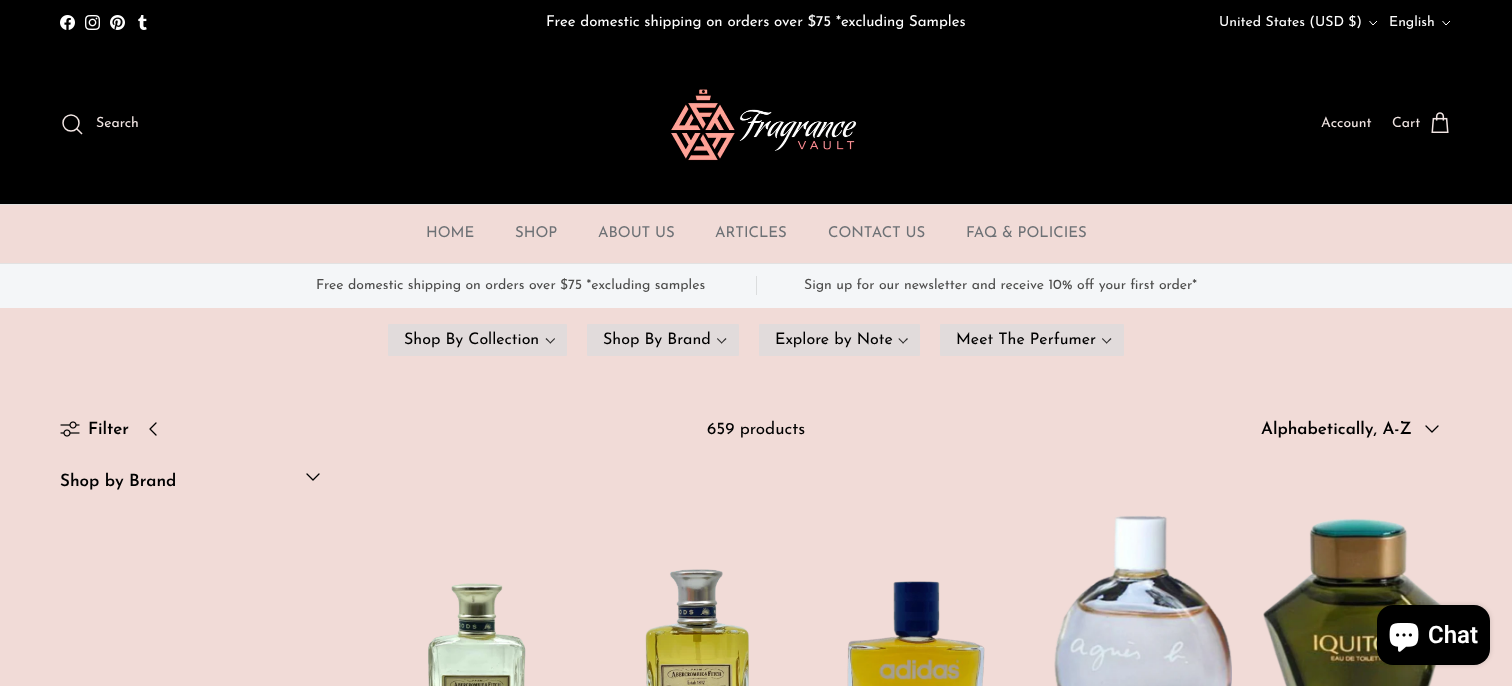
<!DOCTYPE html>
<meta charset="utf-8">
<style>body { margin: 0 } canvas { display: block }</style>
<canvas id="canvas" width="1512" height="686"></canvas>
<script type="module">
  const canvas = document.getElementById("canvas");
  const ctx = canvas.getContext("2d");
  ctx.miterLimit = 4;
  ctx.fontKerning = "normal";
  async function loadImage(src) {
    const img = new Image();
    img.src = src;
    await img.decode();
    return img;
  }

  ctx.fillStyle = "#f1dbd7";
  ctx.fillRect(0, 0, 1512, 686);
  ctx.fillStyle = "#000000";
  ctx.fillRect(0, 0, 1512, 204);
  ctx.drawImage(await loadImage("img1.png"), 60, 15, 15, 15);
  ctx.drawImage(await loadImage("img2.png"), 85, 15, 15, 15);
  ctx.drawImage(await loadImage("img3.png"), 110, 15, 15, 15);
  ctx.drawImage(await loadImage("img4.png"), 138, 15, 9, 15);
  ctx.font = "15px Josefin Sans";
  ctx.fillStyle = "#ffffff";
  ctx.fillText("Free domestic shipping on orders over $75 *excluding Samples", 546, 26);
  ctx.font = "14px Josefin Sans";
  ctx.fillText("United States (USD $)", 1219, 26);
  ctx.beginPath();
  ctx.moveTo(1377, 21);
  ctx.lineTo(1373, 25);
  ctx.lineTo(1369.5, 21);
  ctx.strokeStyle = "#ffffff";
  ctx.stroke();
  ctx.fillText("English", 1389, 26);
  ctx.beginPath();
  ctx.moveTo(1450, 21);
  ctx.lineTo(1446, 25);
  ctx.lineTo(1442.5, 21);
  ctx.stroke();
  ctx.fillStyle = "#e2e2e2";
  ctx.fillRect(0, 204, 1512, 1);
  ctx.beginPath();
  ctx.arc(71, 123, 8, 0, Math.PI * 2);
  ctx.strokeStyle = "#f2e6e4";
  ctx.lineWidth = 1.5;
  ctx.stroke();
  ctx.fillStyle = "#f2e6e4";
  ctx.fillText("Search", 96, 127);
  ctx.beginPath();
  ctx.moveTo(77, 129);
  ctx.lineTo(81.5, 133.5);
  ctx.lineCap = "square";
  ctx.stroke();
  ctx.drawImage(await loadImage("img5.png"), 671, 89, 186, 72);
  ctx.fillText("Account", 1321, 127);
  ctx.fillText("Cart", 1392, 127);
  ctx.drawImage(await loadImage("img6.png"), 1431, 112, 18, 21);
  ctx.fillStyle = "#e2e2e2";
  ctx.fillRect(0, 263, 1512, 1);
  ctx.font = "15px Josefin Sans";
  ctx.fillStyle = "#6d7175";
  ctx.fillText("HOME", 426, 237);
  ctx.fillText("SHOP", 515, 237);
  ctx.fillText("ABOUT US", 598, 237);
  ctx.fillText("ARTICLES", 715, 237);
  ctx.fillText("CONTACT US", 828, 237);
  ctx.fillText("FAQ & POLICIES", 966, 237);
  ctx.fillStyle = "#f4f6f8";
  ctx.fillRect(0, 264, 1512, 44);
  ctx.font = "14px Josefin Sans";
  ctx.fillStyle = "#4c4c4b";
  ctx.fillText("Free domestic shipping on orders over $75 *excluding samples", 316, 289);
  ctx.fillStyle = "#dbddde";
  ctx.fillRect(756, 276, 1, 19);
  ctx.fillStyle = "#4c4c4b";
  ctx.fillText("Sign up for our newsletter and receive 10% off your first order*", 804, 289);
  ctx.fillStyle = "#e1dbdb";
  ctx.beginPath();
  ctx.roundRect(388, 324, 179, 32, 1);
  ctx.fill();
  ctx.font = "16px Josefin Sans";
  ctx.fillStyle = "#000000";
  ctx.fillText("Shop By Collection", 404, 344);
  ctx.fillStyle = "#2d2c2c";
  ctx.beginPath();
  ctx.moveTo(554.5, 338);
  ctx.lineTo(555, 339);
  ctx.lineTo(550.5, 343.5);
  ctx.lineTo(549.5, 343);
  ctx.closePath();
  ctx.fill();
  ctx.beginPath();
  ctx.moveTo(546.5, 338);
  ctx.lineTo(551, 343);
  ctx.lineTo(550.5, 343.5);
  ctx.lineTo(545.5, 339);
  ctx.closePath();
  ctx.fill();
  ctx.fillStyle = "#e1dbdb";
  ctx.beginPath();
  ctx.roundRect(587, 324, 152, 32, 1);
  ctx.fill();
  ctx.fillStyle = "#000000";
  ctx.fillText("Shop By Brand", 603, 344);
  ctx.fillStyle = "#2d2c2c";
  ctx.beginPath();
  ctx.moveTo(725.5, 338);
  ctx.lineTo(726.5, 339);
  ctx.lineTo(721.5, 343.5);
  ctx.lineTo(721, 343);
  ctx.closePath();
  ctx.fill();
  ctx.beginPath();
  ctx.moveTo(717.5, 338);
  ctx.lineTo(722.5, 343);
  ctx.lineTo(721.5, 343.5);
  ctx.lineTo(717, 339);
  ctx.closePath();
  ctx.fill();
  ctx.fillStyle = "#e1dbdb";
  ctx.beginPath();
  ctx.roundRect(759, 324, 161, 32, 1);
  ctx.fill();
  ctx.fillStyle = "#000000";
  ctx.fillText("Explore by Note", 775, 344);
  ctx.fillStyle = "#2d2c2c";
  ctx.beginPath();
  ctx.moveTo(907, 338);
  ctx.lineTo(908, 339);
  ctx.lineTo(903, 343.5);
  ctx.lineTo(902.5, 343);
  ctx.closePath();
  ctx.fill();
  ctx.beginPath();
  ctx.moveTo(899, 338);
  ctx.lineTo(904, 343);
  ctx.lineTo(903, 343.5);
  ctx.lineTo(898.5, 339);
  ctx.closePath();
  ctx.fill();
  ctx.fillStyle = "#e1dbdb";
  ctx.beginPath();
  ctx.roundRect(940, 324, 184, 32, 1);
  ctx.fill();
  ctx.fillStyle = "#000000";
  ctx.fillText("Meet The Perfumer", 956, 344);
  ctx.fillStyle = "#2d2c2c";
  ctx.beginPath();
  ctx.moveTo(1110.5, 338);
  ctx.lineTo(1111.5, 339);
  ctx.lineTo(1106.5, 343.5);
  ctx.lineTo(1106, 343);
  ctx.closePath();
  ctx.fill();
  ctx.beginPath();
  ctx.moveTo(1102.5, 338);
  ctx.lineTo(1107.5, 343);
  ctx.lineTo(1106.5, 343.5);
  ctx.lineTo(1102, 339);
  ctx.closePath();
  ctx.fill();
  ctx.drawImage(await loadImage("img7.png"), 60, 421, 20, 16);
  ctx.font = "600 17px Josefin Sans";
  ctx.fillStyle = "#000000";
  ctx.fillText("Filter", 88, 434);
  ctx.beginPath();
  ctx.moveTo(156, 423);
  ctx.lineTo(150, 429);
  ctx.lineTo(156, 435);
  ctx.strokeStyle = "#000000";
  ctx.lineWidth = 1.3;
  ctx.lineCap = "round";
  ctx.lineJoin = "round";
  ctx.stroke();
  ctx.font = "17px Josefin Sans";
  ctx.fillText("659 products", 707, 434);
  ctx.font = "600 17px Josefin Sans";
  ctx.fillText("Alphabetically, A-Z", 1261, 434);
  ctx.beginPath();
  ctx.moveTo(1426, 426);
  ctx.lineTo(1432, 432);
  ctx.lineTo(1438, 426);
  ctx.stroke();
  ctx.fillText("Shop by Brand", 60, 486);
  ctx.beginPath();
  ctx.moveTo(307, 474);
  ctx.lineTo(313, 480);
  ctx.lineTo(319, 474);
  ctx.stroke();
  ctx.drawImage(await loadImage("img8.png"), 428, 583, 98, 103);
  ctx.drawImage(await loadImage("img9.png"), 645, 569, 104, 117);
  ctx.drawImage(await loadImage("img10.png"), 847, 581, 138, 105);
  ctx.drawImage(await loadImage("img11.png"), 1054, 515, 178, 171);
  ctx.drawImage(await loadImage("img12.png"), 1263, 518, 179, 168);
  ctx.fillStyle = "rgba(0, 0, 0, 0.15)";
  ctx.filter = "blur(2.5px)";
  ctx.beginPath();
  ctx.roundRect(1377, 605, 113, 60, 16);
  ctx.fill();
  ctx.filter = "none";
  ctx.fillStyle = "#000000";
  ctx.beginPath();
  ctx.roundRect(1377, 605, 113, 60, 16);
  ctx.fill();
  ctx.drawImage(await loadImage("img13.png"), 1389, 623, 30, 29);
  ctx.font = "600 24px Roboto";
  ctx.fillStyle = "#ffffff";
  ctx.fillText("Chat", 1428, 643);
</script>
